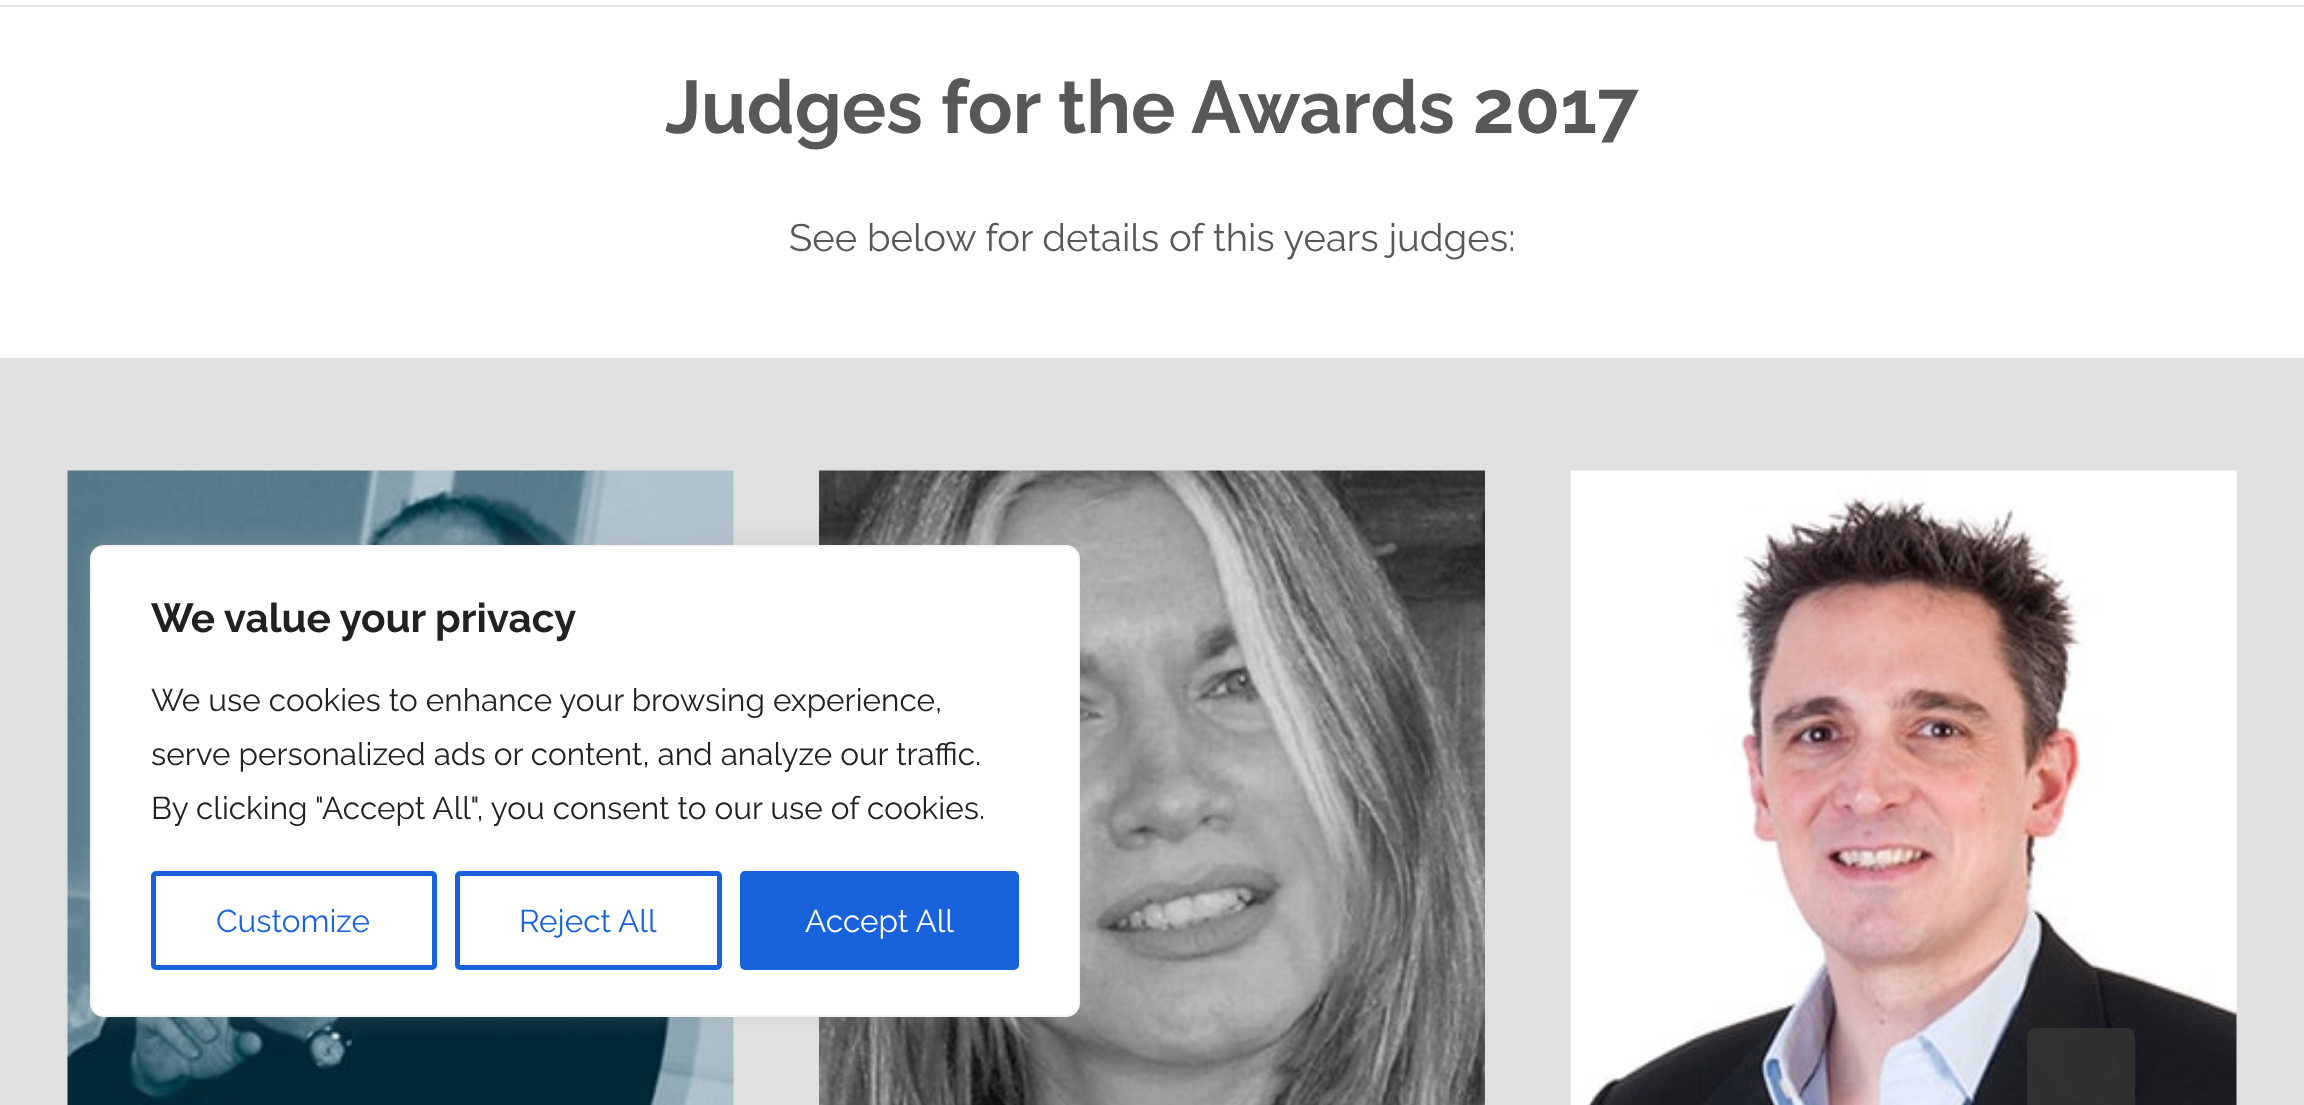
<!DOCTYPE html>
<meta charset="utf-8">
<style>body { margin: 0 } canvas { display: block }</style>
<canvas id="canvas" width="2304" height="1105"></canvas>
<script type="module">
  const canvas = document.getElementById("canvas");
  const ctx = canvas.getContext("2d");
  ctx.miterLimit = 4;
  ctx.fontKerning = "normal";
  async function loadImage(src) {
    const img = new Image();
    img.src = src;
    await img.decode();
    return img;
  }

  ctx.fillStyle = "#ffffff";
  ctx.fillRect(0, 0, 2304, 1105);
  ctx.fillStyle = "#e5e5e5";
  ctx.fillRect(0, 5, 2304, 2);
  ctx.font = "bold 74.25px Raleway";
  ctx.fillStyle = "#58585a";
  ctx.fillText("Judges for the Awards 2017", 665, 133);
  ctx.font = "38.25px Raleway";
  ctx.fillText("See below for details of this years judges:", 789, 251);
  ctx.fillStyle = "#e0e0e0";
  ctx.fillRect(0, 358, 2304, 747);
  ctx.drawImage(await loadImage("img1.png"), 67, 470, 667, 635);
  ctx.drawImage(await loadImage("img2.png"), 819, 470, 666, 635);
  ctx.drawImage(await loadImage("img3.png"), 1570, 470, 667, 635);
  ctx.fillStyle = "rgba(172, 171, 171, 0.3)";
  ctx.filter = "blur(11px)";
  ctx.beginPath();
  ctx.roundRect(90, 542, 990, 473, 14);
  ctx.fill();
  ctx.filter = "none";
  ctx.fillStyle = "#ffffff";
  ctx.beginPath();
  ctx.roundRect(91, 546, 988, 470, 13);
  ctx.fill();
  ctx.strokeStyle = "#f4f4f4";
  ctx.lineWidth = 2;
  ctx.stroke();
  ctx.font = "bold 40.5px Raleway";
  ctx.fillStyle = "#212121";
  ctx.fillText("We value your privacy", 151, 632);
  ctx.font = "31.5px Raleway";
  ctx.fillText("We use cookies to enhance your browsing experience,", 151, 711);
  ctx.fillText("serve personalized ads or content, and analyze our traffic.", 151, 765);
  ctx.fillText("By clicking \"Accept All\", you consent to our use of cookies.", 151, 819);
  ctx.beginPath();
  ctx.roundRect(153.5, 873.5, 281, 94, 2.5);
  ctx.strokeStyle = "#1863dc";
  ctx.lineWidth = 5;
  ctx.stroke();
  ctx.fillStyle = "#1863dc";
  ctx.fillText("Customize", 216, 932);
  ctx.beginPath();
  ctx.roundRect(457.5, 873.5, 262, 94, 2.5);
  ctx.stroke();
  ctx.fillText("Reject All", 519, 932);
  ctx.beginPath();
  ctx.roundRect(742.5, 873.5, 274, 94, 2.5);
  ctx.fill();
  ctx.stroke();
  ctx.fillStyle = "#ffffff";
  ctx.fillText("Accept All", 805, 932);
  ctx.fillStyle = "rgba(51, 51, 51, 0.9)";
  ctx.beginPath();
  ctx.moveTo(2036, 1028);
  ctx.lineTo(2126, 1028);
  ctx.bezierCurveTo(2131, 1028, 2135, 1032, 2135, 1037);
  ctx.lineTo(2135, 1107);
  ctx.lineTo(2027, 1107);
  ctx.lineTo(2027, 1037);
  ctx.bezierCurveTo(2027, 1032, 2031, 1028, 2036, 1028);
  ctx.closePath();
  ctx.fill();
</script>
